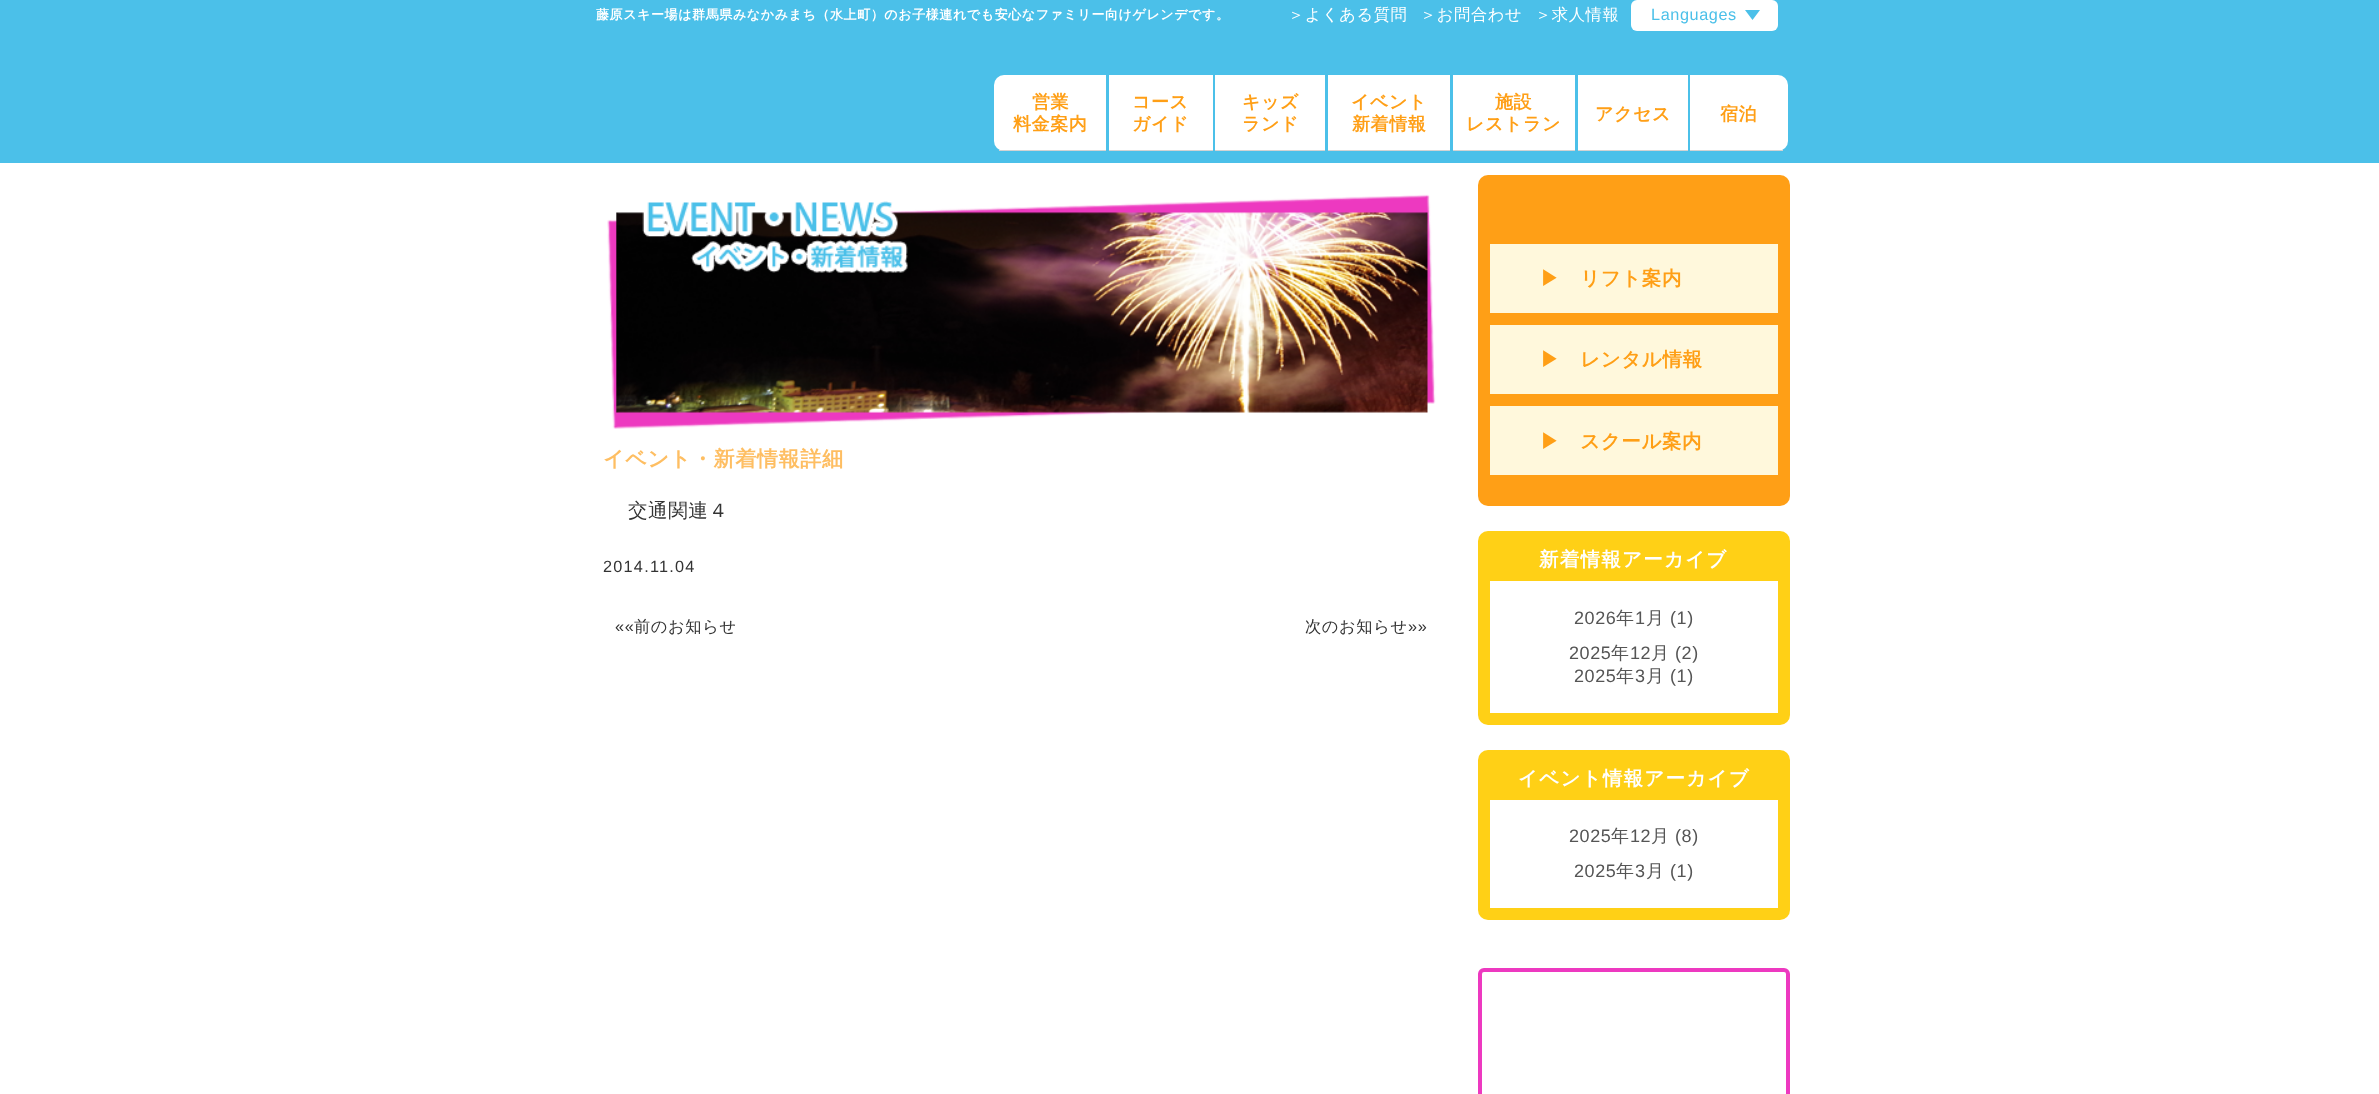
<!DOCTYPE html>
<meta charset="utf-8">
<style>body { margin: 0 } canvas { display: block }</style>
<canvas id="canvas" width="2379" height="1094"></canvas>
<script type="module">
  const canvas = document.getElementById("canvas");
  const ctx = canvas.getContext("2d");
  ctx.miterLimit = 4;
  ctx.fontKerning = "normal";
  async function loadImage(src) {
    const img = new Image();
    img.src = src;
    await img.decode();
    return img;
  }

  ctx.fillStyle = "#4bc0e9";
  ctx.fillRect(0, 0, 2379, 1094);
  ctx.letterSpacing = "0.6px";
  ctx.font = "bold 13px WenQuanYi Zen Hei";
  ctx.fillStyle = "#ffffff";
  ctx.fillText("藤原スキー場は群馬県みなかみまち（水上町）のお子様連れでも安心なファミリー向けゲレンデです。", 596, 19);
  ctx.font = "500 16.25px WenQuanYi Zen Hei";
  ctx.fillText("＞よくある質問", 1288, 20);
  ctx.fillText("＞お問合わせ", 1420, 20);
  ctx.fillText("＞求人情報", 1535, 20);
  ctx.beginPath();
  ctx.roundRect(1631, 0, 147, 31, 6);
  ctx.fill();
  ctx.font = "16.25px Liberation Sans";
  ctx.fillStyle = "#4bc0e9";
  ctx.fillText("Languages", 1651, 20);
  ctx.beginPath();
  ctx.moveTo(1745, 10);
  ctx.lineTo(1760, 10);
  ctx.lineTo(1752.5, 20);
  ctx.closePath();
  ctx.fill();
  ctx.fillStyle = "#ffffff";
  ctx.beginPath();
  ctx.roundRect(994, 75, 112, 76, [10, 0, 0, 10]);
  ctx.fill();
  ctx.fillStyle = "#d3d3d3";
  ctx.fillRect(999, 150, 107, 1);
  ctx.font = "bold 18px WenQuanYi Zen Hei";
  ctx.fillStyle = "#ff9f16";
  ctx.fillText("営業", 1032, 108);
  ctx.fillText("料金案内", 1013, 130);
  ctx.fillStyle = "#ffffff";
  ctx.fillRect(1109, 75, 104, 75);
  ctx.fillStyle = "#d3d3d3";
  ctx.fillRect(1109, 150, 104, 1);
  ctx.fillStyle = "#ff9f16";
  ctx.fillText("コース", 1132, 108);
  ctx.fillText("ガイド", 1132, 130);
  ctx.fillStyle = "#ffffff";
  ctx.fillRect(1215, 75, 110, 75);
  ctx.fillStyle = "#d3d3d3";
  ctx.fillRect(1215, 150, 110, 1);
  ctx.fillStyle = "#ff9f16";
  ctx.fillText("キッズ", 1242, 108);
  ctx.fillText("ランド", 1242, 130);
  ctx.fillStyle = "#ffffff";
  ctx.fillRect(1328, 75, 122, 75);
  ctx.fillStyle = "#d3d3d3";
  ctx.fillRect(1328, 150, 122, 1);
  ctx.fillStyle = "#ff9f16";
  ctx.fillText("イベント", 1351, 108);
  ctx.fillText("新着情報", 1352, 130);
  ctx.fillStyle = "#ffffff";
  ctx.fillRect(1453, 75, 122, 75);
  ctx.fillStyle = "#d3d3d3";
  ctx.fillRect(1453, 150, 122, 1);
  ctx.fillStyle = "#ff9f16";
  ctx.fillText("施設", 1495, 108);
  ctx.fillText("レストラン", 1466, 130);
  ctx.fillStyle = "#ffffff";
  ctx.fillRect(1578, 75, 110, 75);
  ctx.fillStyle = "#d3d3d3";
  ctx.fillRect(1578, 150, 110, 1);
  ctx.fillStyle = "#ff9f16";
  ctx.fillText("アクセス", 1595, 120);
  ctx.fillStyle = "#ffffff";
  ctx.beginPath();
  ctx.roundRect(1690, 75, 98, 76, [0, 10, 10, 0]);
  ctx.fill();
  ctx.fillStyle = "#d3d3d3";
  ctx.fillRect(1690, 150, 93, 1);
  ctx.fillStyle = "#ff9f16";
  ctx.fillText("宿泊", 1720, 120);
  ctx.fillStyle = "#ffffff";
  ctx.fillRect(0, 163, 2379, 931);
  ctx.drawImage(await loadImage("img1.png"), 607, 194, 829, 235);
  ctx.font = "bold 21.1px WenQuanYi Zen Hei";
  ctx.fillStyle = "#febe62";
  ctx.fillText("イベント・新着情報詳細", 603, 466);
  ctx.font = "500 19.5px WenQuanYi Zen Hei";
  ctx.fillStyle = "#333333";
  ctx.fillText("交通関連４", 628, 517);
  ctx.letterSpacing = "1.25px";
  ctx.font = "16.25px Liberation Sans";
  ctx.fillText("2014.11.04", 603, 572);
  ctx.letterSpacing = "0.6px";
  ctx.fillText("««", 615, 632);
  ctx.font = "500 16.25px WenQuanYi Zen Hei";
  ctx.fillText("前のお知らせ", 634, 632);
  ctx.fillText("次のお知らせ", 1305, 632);
  ctx.font = "16.25px Liberation Sans";
  ctx.fillText("»»", 1408, 632);
  ctx.fillStyle = "#ff9f16";
  ctx.beginPath();
  ctx.roundRect(1478, 175, 312, 331, 10);
  ctx.fill();
  ctx.fillStyle = "#fff8dc";
  ctx.fillRect(1490, 244, 288, 69);
  ctx.font = "bold 19.5px WenQuanYi Zen Hei";
  ctx.fillStyle = "#ff9f16";
  ctx.fillText("▶　リフト案内", 1540, 285);
  ctx.fillStyle = "#fff8dc";
  ctx.fillRect(1490, 325, 288, 69);
  ctx.fillStyle = "#ff9f16";
  ctx.fillText("▶　レンタル情報", 1540, 366);
  ctx.fillStyle = "#fff8dc";
  ctx.fillRect(1490, 406, 288, 69);
  ctx.fillStyle = "#ff9f16";
  ctx.fillText("▶　スクール案内", 1540, 448);
  ctx.fillStyle = "#ffd016";
  ctx.beginPath();
  ctx.roundRect(1478, 531, 312, 194, 10);
  ctx.fill();
  ctx.letterSpacing = "1.25px";
  ctx.fillStyle = "#ffffff";
  ctx.fillText("新着情報アーカイブ", 1539, 566);
  ctx.fillRect(1490, 581, 288, 132);
  ctx.letterSpacing = "0.6px";
  ctx.font = "18px Liberation Sans";
  ctx.fillStyle = "#555555";
  ctx.fillText("2026", 1574, 624);
  ctx.font = "500 18px WenQuanYi Zen Hei";
  ctx.fillText("年", 1616, 624);
  ctx.font = "18px Liberation Sans";
  ctx.fillText("1", 1635, 624);
  ctx.font = "500 18px WenQuanYi Zen Hei";
  ctx.fillText("月", 1646, 624);
  ctx.font = "18px Liberation Sans";
  ctx.fillText("(1)", 1670, 624);
  ctx.fillText("2025", 1569, 659);
  ctx.font = "500 18px WenQuanYi Zen Hei";
  ctx.fillText("年", 1611, 659);
  ctx.font = "18px Liberation Sans";
  ctx.fillText("12", 1630, 659);
  ctx.font = "500 18px WenQuanYi Zen Hei";
  ctx.fillText("月", 1651, 659);
  ctx.font = "18px Liberation Sans";
  ctx.fillText("(2)", 1675, 659);
  ctx.fillText("2025", 1574, 682);
  ctx.font = "500 18px WenQuanYi Zen Hei";
  ctx.fillText("年", 1616, 682);
  ctx.font = "18px Liberation Sans";
  ctx.fillText("3", 1635, 682);
  ctx.font = "500 18px WenQuanYi Zen Hei";
  ctx.fillText("月", 1646, 682);
  ctx.font = "18px Liberation Sans";
  ctx.fillText("(1)", 1670, 682);
  ctx.fillStyle = "#ffd016";
  ctx.beginPath();
  ctx.roundRect(1478, 750, 312, 170, 10);
  ctx.fill();
  ctx.letterSpacing = "1.25px";
  ctx.font = "bold 19.5px WenQuanYi Zen Hei";
  ctx.fillStyle = "#ffffff";
  ctx.fillText("イベント情報アーカイブ", 1518, 785);
  ctx.fillRect(1490, 800, 288, 108);
  ctx.letterSpacing = "0.6px";
  ctx.font = "18px Liberation Sans";
  ctx.fillStyle = "#555555";
  ctx.fillText("2025", 1569, 842);
  ctx.font = "500 18px WenQuanYi Zen Hei";
  ctx.fillText("年", 1611, 842);
  ctx.font = "18px Liberation Sans";
  ctx.fillText("12", 1630, 842);
  ctx.font = "500 18px WenQuanYi Zen Hei";
  ctx.fillText("月", 1651, 842);
  ctx.font = "18px Liberation Sans";
  ctx.fillText("(8)", 1675, 842);
  ctx.fillText("2025", 1574, 877);
  ctx.font = "500 18px WenQuanYi Zen Hei";
  ctx.fillText("年", 1616, 877);
  ctx.font = "18px Liberation Sans";
  ctx.fillText("3", 1635, 877);
  ctx.font = "500 18px WenQuanYi Zen Hei";
  ctx.fillText("月", 1646, 877);
  ctx.font = "18px Liberation Sans";
  ctx.fillText("(1)", 1670, 877);
  ctx.beginPath();
  ctx.roundRect(1480, 970, 308, 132, 4);
  ctx.strokeStyle = "#ed39c0";
  ctx.lineWidth = 4;
  ctx.stroke();
</script>
